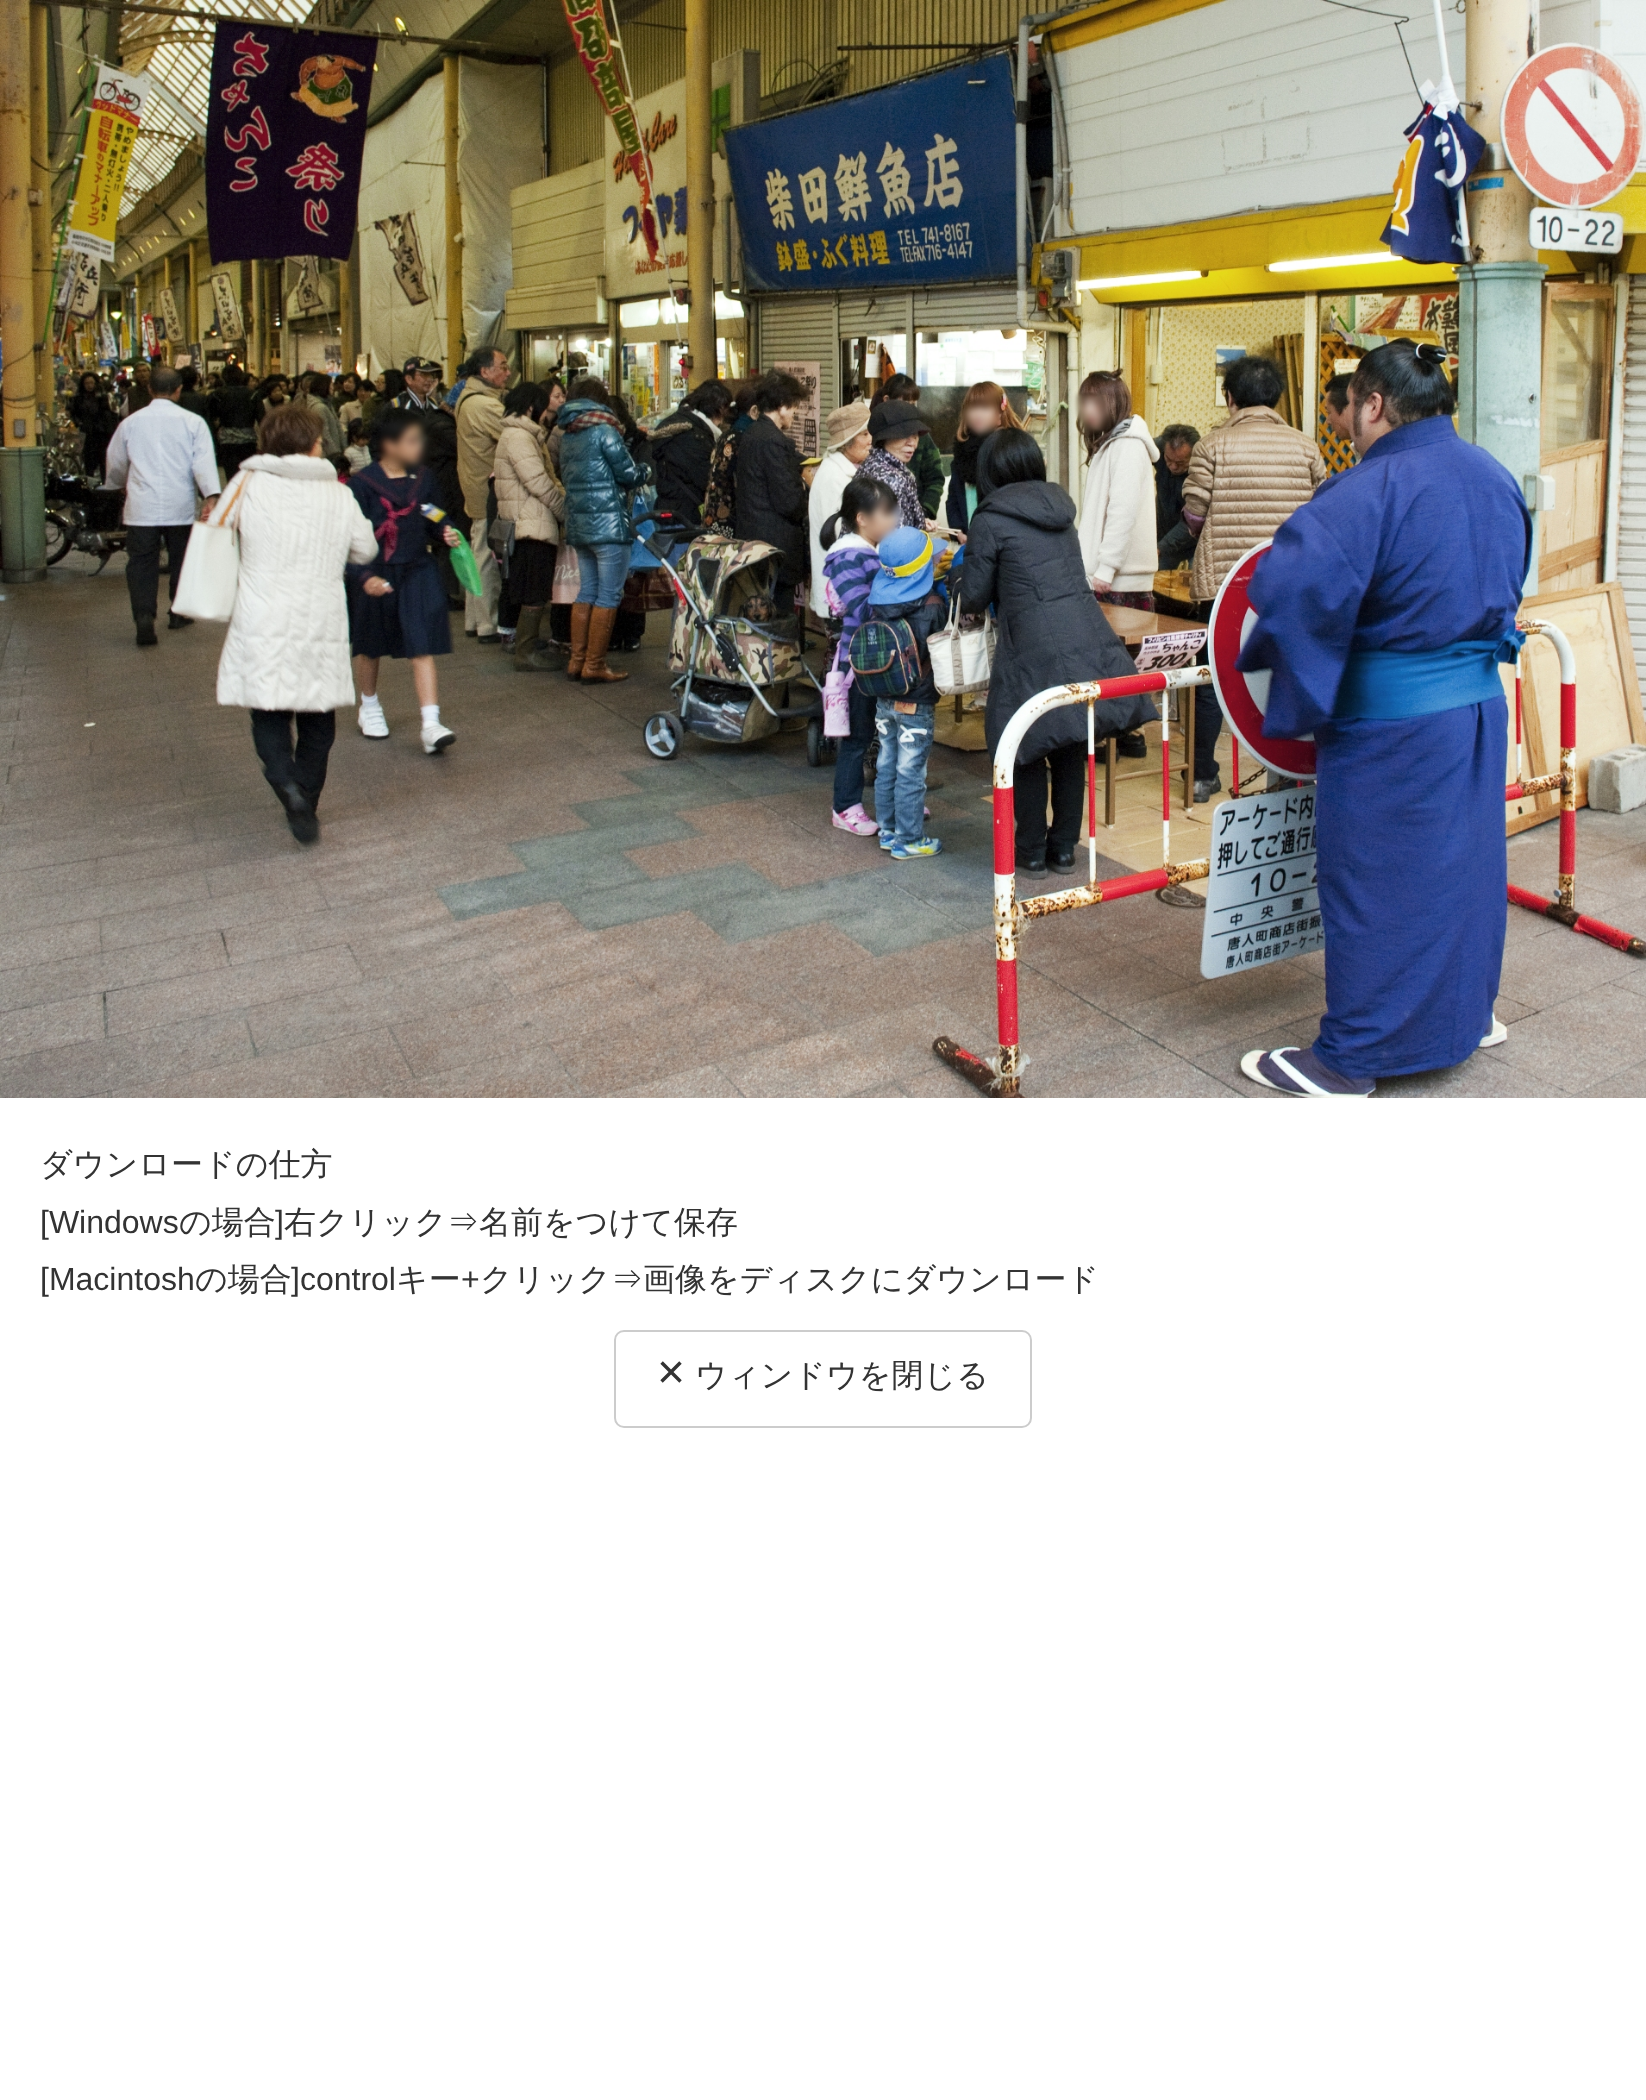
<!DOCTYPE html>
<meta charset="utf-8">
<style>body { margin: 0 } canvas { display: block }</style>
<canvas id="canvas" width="1646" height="2100"></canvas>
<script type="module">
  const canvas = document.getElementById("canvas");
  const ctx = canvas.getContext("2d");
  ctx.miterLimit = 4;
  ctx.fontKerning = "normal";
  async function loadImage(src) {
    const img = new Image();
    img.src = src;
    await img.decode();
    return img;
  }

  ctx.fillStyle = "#ffffff";
  ctx.fillRect(0, 0, 1646, 2100);
  ctx.drawImage(await loadImage("img1.png"), 0, 0, 1646, 1098);
  ctx.font = "500 32px WenQuanYi Zen Hei";
  ctx.fillStyle = "#333333";
  ctx.fillText("ダウンロードの仕方", 40, 1175);
  ctx.font = "32px Liberation Sans";
  ctx.fillText("[Windows", 40, 1233);
  ctx.font = "500 32px WenQuanYi Zen Hei";
  ctx.fillText("の場合", 179, 1233);
  ctx.font = "32px Liberation Sans";
  ctx.fillText("]", 275, 1233);
  ctx.font = "500 32px WenQuanYi Zen Hei";
  ctx.fillText("右クリック⇒名前をつけて保存", 284, 1233);
  ctx.font = "32px Liberation Sans";
  ctx.fillText("[Macintosh", 40, 1290);
  ctx.font = "500 32px WenQuanYi Zen Hei";
  ctx.fillText("の場合", 195, 1290);
  ctx.font = "32px Liberation Sans";
  ctx.fillText("]control", 291, 1290);
  ctx.font = "500 32px WenQuanYi Zen Hei";
  ctx.fillText("キー", 396, 1290);
  ctx.font = "32px Liberation Sans";
  ctx.fillText("+", 461, 1290);
  ctx.font = "500 32px WenQuanYi Zen Hei";
  ctx.fillText("クリック⇒画像をディスクにダウンロード", 480, 1290);
  ctx.beginPath();
  ctx.roundRect(615, 1331, 416, 96, 9);
  ctx.strokeStyle = "#cccccc";
  ctx.lineWidth = 2;
  ctx.stroke();
  ctx.font = "48px Liberation Sans";
  ctx.fillText("×", 657, 1388);
  ctx.font = "500 32px WenQuanYi Zen Hei";
  ctx.fillText("ウィンドウを閉じる", 695, 1386);
</script>
